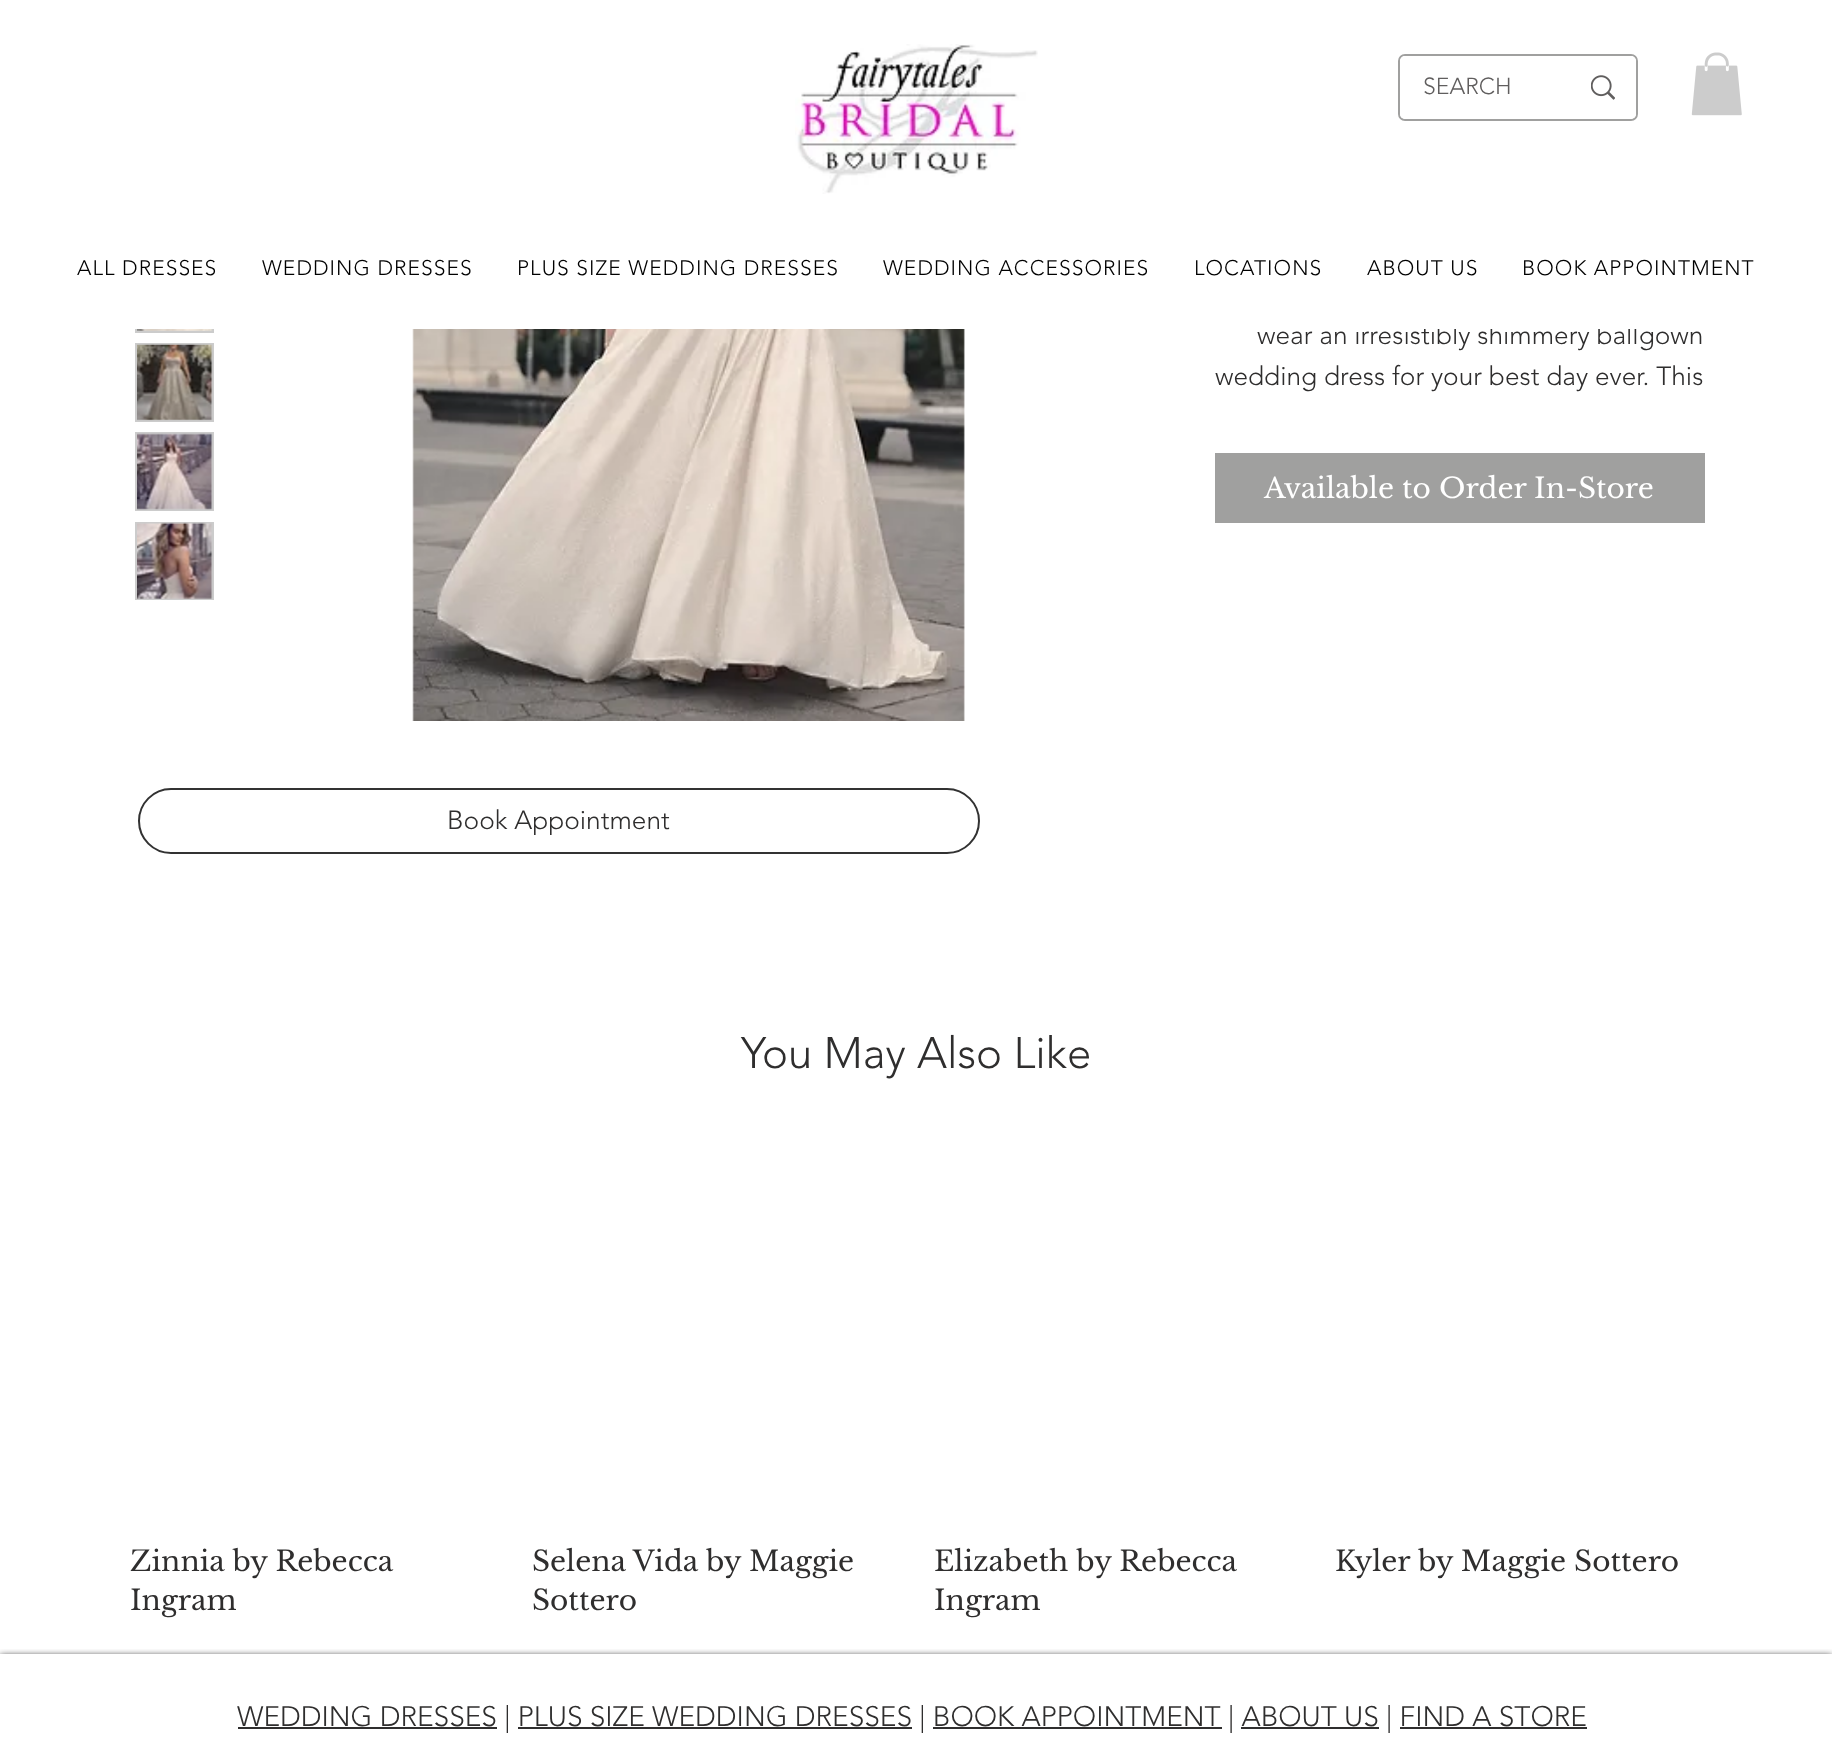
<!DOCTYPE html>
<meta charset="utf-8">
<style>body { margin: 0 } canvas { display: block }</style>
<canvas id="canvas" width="1832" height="1749"></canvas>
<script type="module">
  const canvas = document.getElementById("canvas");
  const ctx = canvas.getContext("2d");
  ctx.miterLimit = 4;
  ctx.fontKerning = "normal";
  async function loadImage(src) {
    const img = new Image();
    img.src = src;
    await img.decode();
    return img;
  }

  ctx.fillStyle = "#ffffff";
  ctx.fillRect(0, 0, 1832, 1749);
  ctx.drawImage(await loadImage("img1.png"), 795, 44, 243, 150);
  ctx.beginPath();
  ctx.roundRect(1399, 55, 238, 65, 6);
  ctx.strokeStyle = "#a0a09f";
  ctx.lineWidth = 2;
  ctx.stroke();
  ctx.beginPath();
  ctx.roundRect(1400, 56, 236, 63, 5);
  ctx.fill();
  ctx.font = "300 23px 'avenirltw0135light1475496'";
  ctx.fillStyle = "#605e5e";
  ctx.fillText("SEARCH", 1423, 94);
  ctx.drawImage(await loadImage("img2.png"), 1591, 75, 24, 25);
  ctx.drawImage(await loadImage("img3.png"), 1691, 52, 51, 64);
  ctx.letterSpacing = "1.05px";
  ctx.font = "300 21px 'avenirltw0135light1475496'";
  ctx.fillStyle = "#000000";
  ctx.fillText("ALL DRESSES", 77, 275);
  ctx.fillText("WEDDING DRESSES", 262, 275);
  ctx.fillText("PLUS SIZE WEDDING DRESSES", 517, 275);
  ctx.fillText("WEDDING ACCESSORIES", 883, 275);
  ctx.fillText("LOCATIONS", 1194, 275);
  ctx.fillText("ABOUT US", 1367, 275);
  ctx.fillText("BOOK APPOINTMENT", 1522, 275);
  ctx.letterSpacing = "0px";
  ctx.font = "300 26.25px 'avenirltw0135light1475496'";
  ctx.fillStyle = "#2f2e2e";
  ctx.fillText("wear an irresistibly shimmery ballgown", 1257, 344);
  ctx.fillStyle = "#ffffff";
  ctx.fillRect(1356, 324, 281, 5);
  ctx.fillStyle = "#cccccc";
  ctx.fillRect(135, 329, 79, 4);
  ctx.drawImage(await loadImage("img4.png"), 137, 329, 76, 2);
  ctx.fillRect(135, 343, 79, 79);
  ctx.drawImage(await loadImage("img5.png"), 137, 344, 76, 77);
  ctx.fillRect(135, 432, 79, 79);
  ctx.drawImage(await loadImage("img6.png"), 137, 433, 76, 77);
  ctx.fillRect(135, 522, 79, 78);
  ctx.drawImage(await loadImage("img7.png"), 137, 522, 76, 77);
  ctx.drawImage(await loadImage("img8.png"), 412, 329, 553, 392);
  ctx.fillStyle = "#2f2e2e";
  ctx.fillText("wedding dress for your best day ever. This", 1215, 385);
  ctx.fillStyle = "#a0a09f";
  ctx.fillRect(1215, 453, 490, 70);
  ctx.font = "28px Libre Baskerville";
  ctx.fillStyle = "#ffffff";
  ctx.fillText("Available to Order In-Store", 1264, 498);
  ctx.beginPath();
  ctx.roundRect(139, 789, 840, 64, 32);
  ctx.strokeStyle = "#323232";
  ctx.stroke();
  ctx.font = "300 26.25px 'avenirltw0135light1475496'";
  ctx.fillStyle = "#2f2e2e";
  ctx.fillText("Book Appointment", 447, 829);
  ctx.font = "300 43.75px 'avenirltw0135light1475496'";
  ctx.fillText("You May Also Like", 741, 1068);
  ctx.font = "28px Libre Baskerville";
  ctx.fillText("Zinnia by Rebecca", 130, 1571);
  ctx.fillText("Ingram", 130, 1610);
  ctx.fillText("Selena Vida by Maggie", 532, 1571);
  ctx.fillText("Sottero", 532, 1610);
  ctx.fillText("Elizabeth by Rebecca", 934, 1571);
  ctx.fillText("Ingram", 934, 1610);
  ctx.fillText("Kyler by Maggie Sottero", 1335, 1571);
  ctx.save();
  ctx.beginPath();
  ctx.rect(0, 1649, 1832, 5);
  ctx.clip();
  ctx.fillStyle = "#000000";
  ctx.filter = "blur(3.5px)";
  ctx.beginPath();
  ctx.rect(0, 1656, 1832, 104);
  ctx.fill();
  ctx.filter = "none";
  ctx.restore();
  ctx.fillRect(238, 1727, 259, 2);
  ctx.font = "300 28px 'avenirltw0135light1475496'";
  ctx.fillText("WEDDING DRESSES | PLUS SIZE WEDDING DRESSES | BOOK APPOINTMENT | ABOUT US | FIND A STORE", 237, 1726);
  ctx.fillRect(518, 1727, 394, 2);
  ctx.fillRect(933, 1727, 289, 2);
  ctx.fillRect(1241, 1727, 138, 2);
  ctx.fillRect(1400, 1727, 187, 2);
</script>
